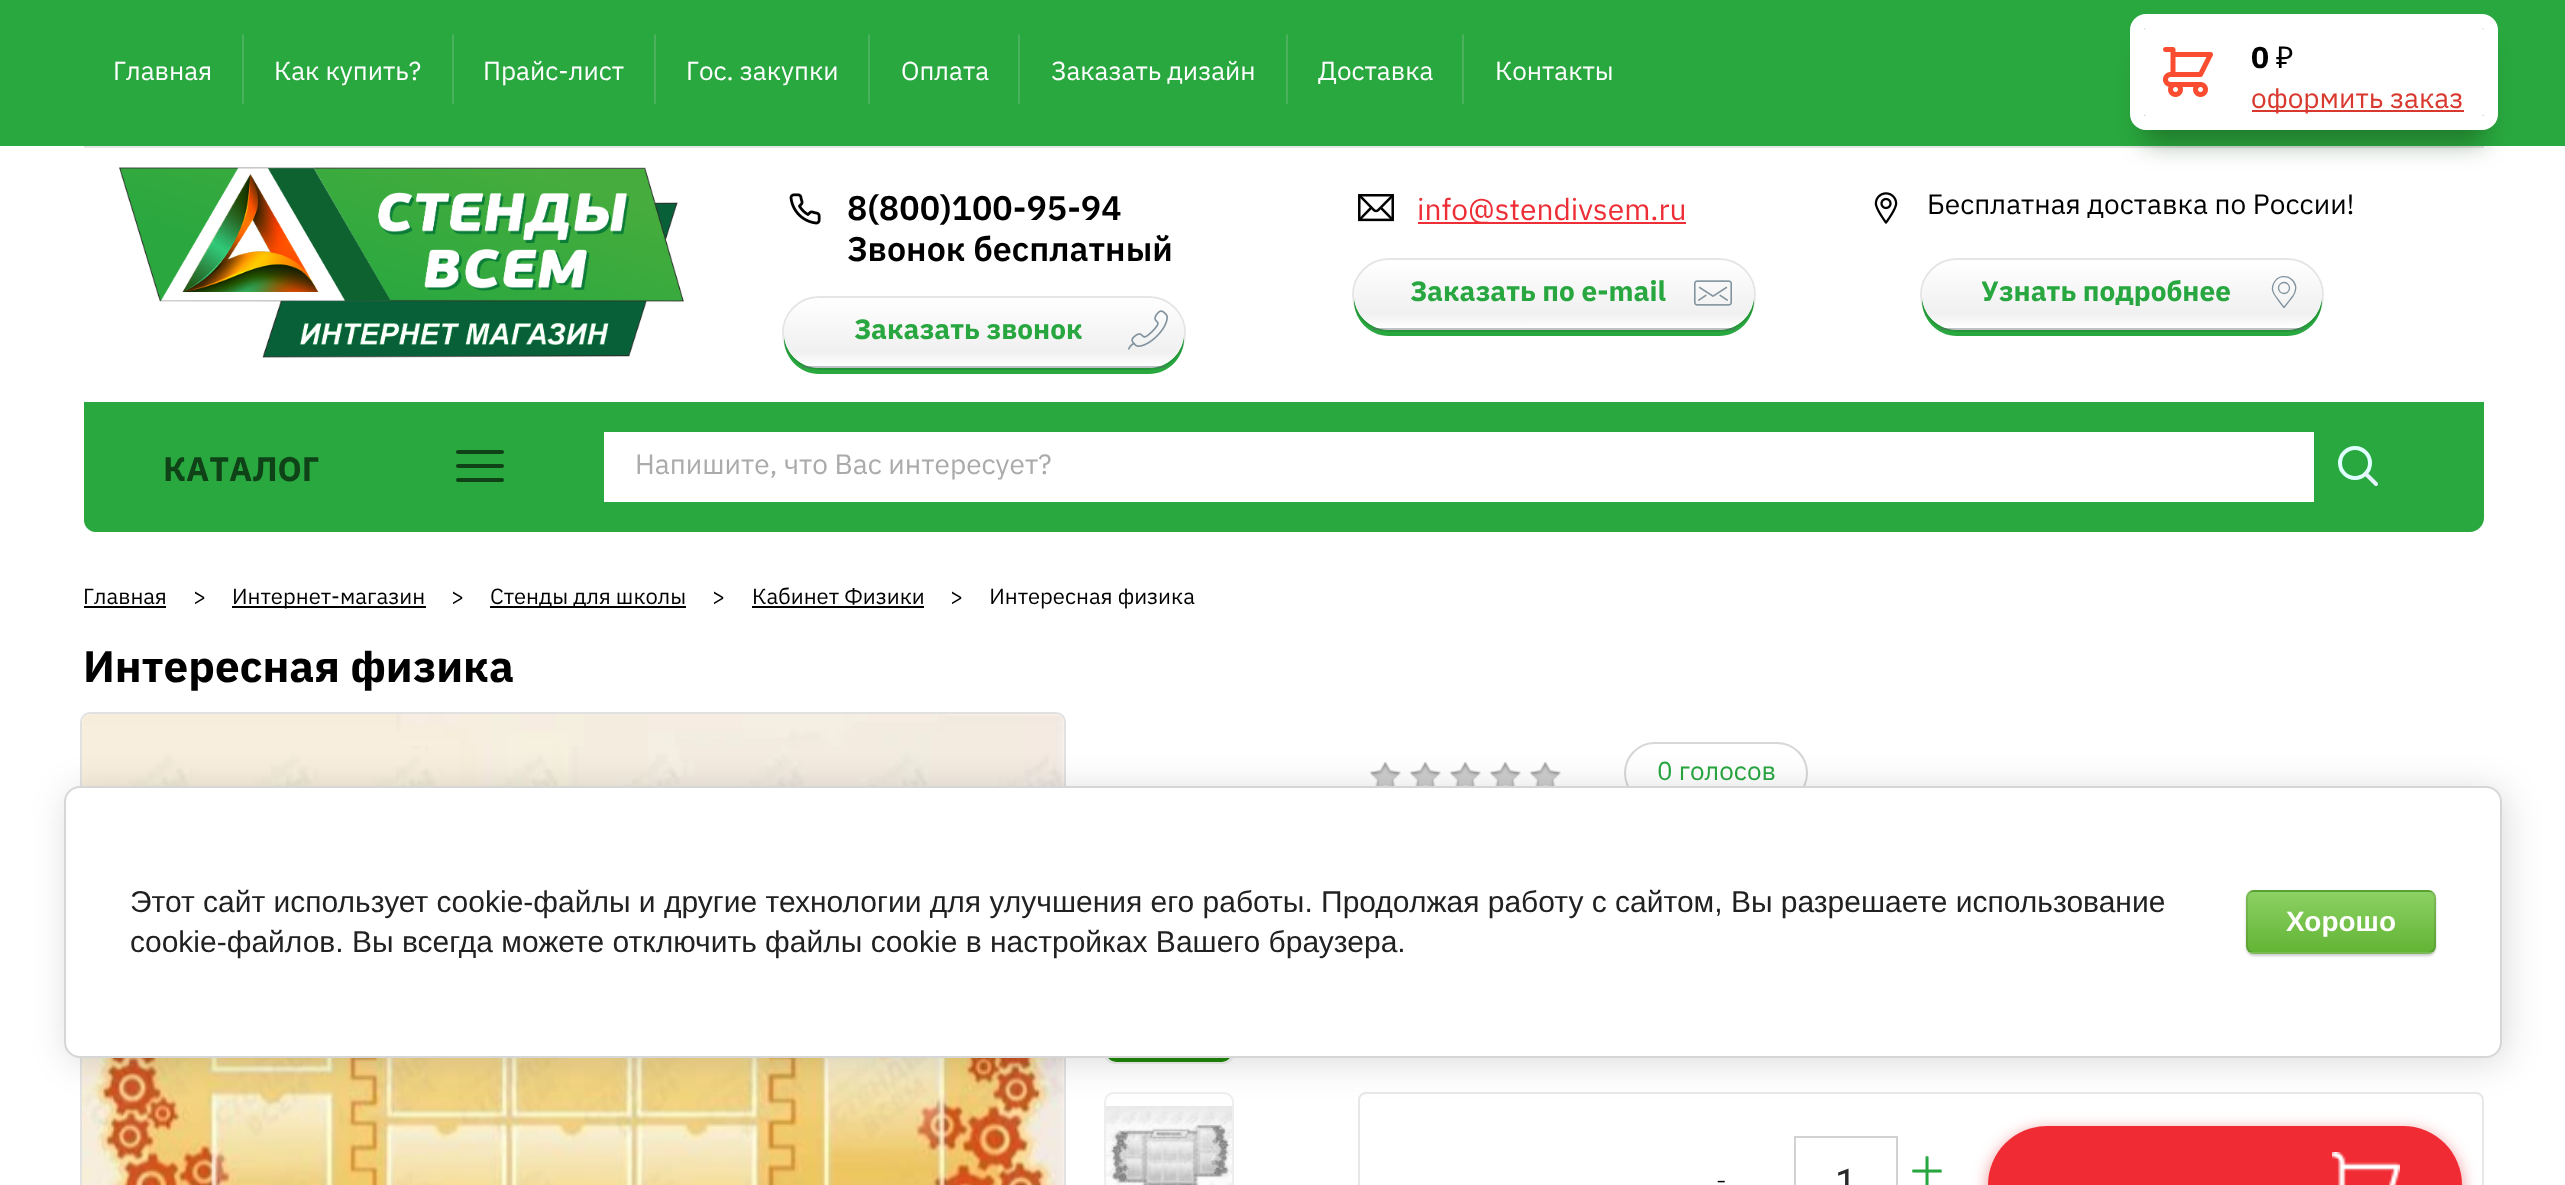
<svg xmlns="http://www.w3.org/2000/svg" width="2565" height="1185">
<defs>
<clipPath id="clip1"><rect x="784" y="298" width="400" height="70" rx="35"/></clipPath>
<linearGradient id="g1" gradientUnits="userSpaceOnUse" x1="984" y1="298" x2="984" y2="366"><stop offset="0" stop-color="#fff"/><stop offset="0.79" stop-color="#f0f0f0"/><stop offset="1" stop-color="#fefefe"/></linearGradient>
<linearGradient id="g2" gradientUnits="userSpaceOnUse" x1="984" y1="366" x2="984" y2="434"><stop offset="0" stop-color="#fff"/><stop offset="0.79" stop-color="#f0f0f0"/><stop offset="1" stop-color="#fefefe"/></linearGradient>
<clipPath id="clip2"><rect x="1354" y="260" width="400" height="70" rx="35"/></clipPath>
<linearGradient id="g3" gradientUnits="userSpaceOnUse" x1="1554" y1="260" x2="1554" y2="328"><stop offset="0" stop-color="#fff"/><stop offset="0.79" stop-color="#f0f0f0"/><stop offset="1" stop-color="#fefefe"/></linearGradient>
<linearGradient id="g4" gradientUnits="userSpaceOnUse" x1="1554" y1="328" x2="1554" y2="396"><stop offset="0" stop-color="#fff"/><stop offset="0.79" stop-color="#f0f0f0"/><stop offset="1" stop-color="#fefefe"/></linearGradient>
<clipPath id="clip3"><rect x="1922" y="260" width="400" height="70" rx="35"/></clipPath>
<linearGradient id="g5" gradientUnits="userSpaceOnUse" x1="2122" y1="260" x2="2122" y2="328"><stop offset="0" stop-color="#fff"/><stop offset="0.79" stop-color="#f0f0f0"/><stop offset="1" stop-color="#fefefe"/></linearGradient>
<linearGradient id="g6" gradientUnits="userSpaceOnUse" x1="2122" y1="328" x2="2122" y2="396"><stop offset="0" stop-color="#fff"/><stop offset="0.79" stop-color="#f0f0f0"/><stop offset="1" stop-color="#fefefe"/></linearGradient>
<clipPath id="clip4"><rect x="1982" y="274" width="248" height="32"/></clipPath>
<clipPath id="clip5"><rect x="2246" y="890" width="190" height="64" rx="8"/></clipPath>
<linearGradient id="g7" gradientUnits="userSpaceOnUse" x1="2341" y1="832" x2="2341" y2="892"><stop offset="0" stop-color="#8cd164"/><stop offset="1" stop-color="#63b435"/></linearGradient>
<linearGradient id="g8" gradientUnits="userSpaceOnUse" x1="2341" y1="892" x2="2341" y2="952"><stop offset="0" stop-color="#8cd164"/><stop offset="1" stop-color="#63b435"/></linearGradient>
<linearGradient id="g9" gradientUnits="userSpaceOnUse" x1="2341" y1="952" x2="2341" y2="1012"><stop offset="0" stop-color="#8cd164"/><stop offset="1" stop-color="#63b435"/></linearGradient>
</defs>
<rect width="100%" height="100%" fill="#fff"/>
<rect width="2565" height="146" fill="#29a83f"/>
<rect x="84" y="146" width="2400" height="2" fill="#e6e6e6"/>
<text x="113" y="80" style="font-family:IBM Plex Sans;font-size:26px;fill:#fff">Главная</text>
<rect x="242" y="34" width="2" height="70" rx="1" fill="#4cb15d"/>
<text x="274" y="80" style="font-family:IBM Plex Sans;font-size:26px;fill:#fff">Как купить?</text>
<rect x="452" y="34" width="2" height="70" rx="1" fill="#4cb15d"/>
<text x="483" y="80" style="font-family:IBM Plex Sans;font-size:26px;fill:#fff">Прайс-лист</text>
<rect x="654" y="34" width="2" height="70" rx="1" fill="#4cb15d"/>
<text x="686" y="80" style="font-family:IBM Plex Sans;font-size:26px;fill:#fff">Гос. закупки</text>
<rect x="868" y="34" width="2" height="70" rx="1" fill="#4cb15d"/>
<text x="901" y="80" style="font-family:IBM Plex Sans;font-size:26px;fill:#fff">Оплата</text>
<rect x="1018" y="34" width="2" height="70" rx="1" fill="#4cb15d"/>
<text x="1051" y="80" style="font-family:IBM Plex Sans;font-size:26px;fill:#fff">Заказать дизайн</text>
<rect x="1286" y="34" width="2" height="70" rx="1" fill="#4cb15d"/>
<text x="1318" y="80" style="font-family:IBM Plex Sans;font-size:26px;fill:#fff">Доставка</text>
<rect x="1462" y="34" width="2" height="70" rx="1" fill="#4cb15d"/>
<text x="1495" y="80" style="font-family:IBM Plex Sans;font-size:26px;fill:#fff">Контакты</text>
<rect x="2144" y="54" width="340" height="88" rx="2" fill="#17471380" filter="blur(13px)"/>
<rect x="2137" y="21" width="354" height="102" rx="9" fill="none" stroke="#fff" stroke-width="14"/>
<rect x="2144" y="28" width="340" height="88" rx="2" fill="#fff"/>
<image x="2162" y="47" width="51" height="50" href="media/1.png"/>
<text x="2251" y="68" style="font-family:IBM Plex Sans;font-size:30px;font-weight:bold;fill:#000">0</text>
<text x="2276" y="68" style="font-family:Noto Sans;font-size:30px;fill:#000">₽</text>
<rect x="2252" y="110" width="212" height="2" fill="#d8382d"/>
<text x="2251" y="108" style="font-family:IBM Plex Sans;font-size:28px;fill:#d8382d">оформить заказ</text>
<image x="119" y="167" width="565" height="191" href="media/2.png"/>
<image x="789" y="193" width="32" height="32" href="media/3.png"/>
<text x="847" y="220" style="font-family:IBM Plex Sans;font-size:34px;font-weight:600;fill:#000">8(800)100-95-94</text>
<text x="847" y="261" style="font-family:IBM Plex Sans;font-size:34px;font-weight:600;fill:#000">Звонок бесплатный</text>
<path d="M784 336v3c0 19 16 35 35 35h330c19 0 35-16 35-35v-3c-2 18-17 32-35 32h-330c-18 0-33-14-35-32z" fill="#29a83f"/>
<rect x="783" y="297" width="402" height="72" rx="36" fill="none" stroke="#0000001a" stroke-width="2"/>
<g clip-path="url(#clip1)">
<path d="M819 298h330c19.5 0 35 15.5 35 35v33h-400v-33c0-19.5 15.5-35 35-35z" fill="url(#g1)"/>
<rect x="807" y="366" width="354" height="2" fill="url(#g2)"/>
</g>
<image x="1128" y="310" width="40" height="40" href="media/4.png"/>
<rect x="802" y="366" width="364" height="2" fill="#626c7569"/>
<text x="854" y="339" style="font-family:IBM Plex Sans;font-size:28px;font-weight:bold;fill:#28a740">Заказать звонок</text>
<image x="1358" y="194" width="36" height="28" href="media/5.png"/>
<rect x="1418" y="222" width="268" height="2" fill="#ee2e36"/>
<text x="1417" y="220" style="font-family:IBM Plex Sans;font-size:30px;fill:#ee2e36">info@stendivsem.ru</text>
<path d="M1354 298v3c0 19 16 35 35 35h330c19 0 35-16 35-35v-3c-2 18-17 32-35 32h-330c-18 0-33-14-35-32z" fill="#29a83f"/>
<rect x="1353" y="259" width="402" height="72" rx="36" fill="none" stroke="#0000001a" stroke-width="2"/>
<g clip-path="url(#clip2)">
<path d="M1389 260h330c19.5 0 35 15.5 35 35v33h-400v-33c0-19.5 15.5-35 35-35z" fill="url(#g3)"/>
<rect x="1377" y="328" width="354" height="2" fill="url(#g4)"/>
</g>
<image x="1694" y="280" width="38" height="26" href="media/6.png"/>
<rect x="1372" y="328" width="364" height="2" fill="#626c7569"/>
<text x="1410" y="301" style="font-family:IBM Plex Sans;font-size:28px;font-weight:bold;fill:#28a740">Заказать по e-mail</text>
<image x="1874" y="192" width="24" height="32" href="media/7.png"/>
<text x="1927" y="214" style="font-family:IBM Plex Sans;font-size:28px;fill:#000">Бесплатная доставка по России!</text>
<path d="M1922 298v3c0 19 16 35 35 35h330c19 0 35-16 35-35v-3c-2 18-17 32-35 32h-330c-18 0-33-14-35-32z" fill="#29a83f"/>
<rect x="1921" y="259" width="402" height="72" rx="36" fill="none" stroke="#0000001a" stroke-width="2"/>
<g clip-path="url(#clip3)">
<path d="M1957 260h330c19.5 0 35 15.5 35 35v33h-400v-33c0-19.5 15.5-35 35-35z" fill="url(#g5)"/>
<rect x="1945" y="328" width="354" height="2" fill="url(#g6)"/>
</g>
<path d="M2293 296c10-14.5-10-27-18.5-14c-5 7.5 0 13 4.5 19l5 6.5z" fill="none" stroke="#80929e" stroke-width="1.3" stroke-linecap="round" stroke-linejoin="round"/>
<circle cx="2284" cy="288" r="5.5" fill="none" stroke="#80929e" stroke-width="1.3"/>
<rect x="1940" y="328" width="364" height="2" fill="#626c7569"/>
<g clip-path="url(#clip4)">
<text x="1981" y="301" style="font-family:IBM Plex Sans;font-size:28px;font-weight:bold;fill:#28a740">Узнать подробнее</text>
</g>
<path d="M84 402h2400v116c0 7.5-6.5 14-14 14h-2372c-7.5 0-14-6.5-14-14z" fill="#29a83f"/>
<rect x="84" y="402" width="500" height="130" rx="12" fill="#29a83f"/>
<text x="163" y="481" style="font-family:IBM Plex Sans;font-size:34px;font-weight:bold;fill:#104218">КАТАЛОГ</text>
<image x="456" y="450" width="48" height="32" href="media/8.png"/>
<rect x="604" y="432" width="1710" height="70" fill="#fff"/>
<text x="635" y="474" style="font-family:IBM Plex Sans;font-size:28px;fill:#ababab">Напишите, что Вас интересует?</text>
<circle cx="2355" cy="463" r="15" fill="none" stroke="#e0ffff" stroke-width="4"/>
<path d="M2376 484l-10.5-10.5" fill="none" stroke="#e7f2ff" stroke-width="4" stroke-linecap="round" stroke-linejoin="round"/>
<text x="83" y="604" style="font-family:IBM Plex Sans;font-size:22px;fill:#000">Главная</text>
<rect x="84" y="606" width="82" height="2" fill="#000"/>
<text x="193" y="604" style="font-family:IBM Plex Sans;font-size:22px;fill:#000">&gt;</text>
<rect x="232" y="606" width="194" height="2" fill="#000"/>
<text x="232" y="604" style="font-family:IBM Plex Sans;font-size:22px;fill:#000">Интернет-магазин</text>
<text x="451" y="604" style="font-family:IBM Plex Sans;font-size:22px;fill:#000">&gt;</text>
<rect x="490" y="606" width="196" height="2" fill="#000"/>
<text x="490" y="604" style="font-family:IBM Plex Sans;font-size:22px;fill:#000">Стенды для школы</text>
<text x="712" y="604" style="font-family:IBM Plex Sans;font-size:22px;fill:#000">&gt;</text>
<text x="752" y="604" style="font-family:IBM Plex Sans;font-size:22px;fill:#000">Кабинет Физики</text>
<rect x="752" y="606" width="172" height="2" fill="#000"/>
<text x="950" y="604" style="font-family:IBM Plex Sans;font-size:22px;fill:#000" xml:space="preserve">&gt;     Интересная физика</text>
<text x="83" y="682" style="font-family:IBM Plex Sans;font-size:44px;font-weight:bold;fill:#000">Интересная физика</text>
<rect x="81" y="713" width="984" height="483" rx="9" fill="none" stroke="#e1e1e1" stroke-width="2"/>
<image x="82" y="714" width="982" height="471" href="media/9.png"/>
<rect x="1105" y="935" width="128" height="128" rx="9" fill="none" stroke="#eee" stroke-width="2"/>
<rect x="1109" y="939" width="120" height="120" rx="7" fill="none" stroke="#1e8707" stroke-width="6"/>
<rect x="1105" y="1093" width="128" height="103" rx="9" fill="none" stroke="#eee" stroke-width="2"/>
<image x="1106" y="1106" width="126" height="79" href="media/10.png"/>
<image x="1370" y="762" width="191" height="24" href="media/11.png"/>
<rect x="1625" y="743" width="182" height="60" rx="30" fill="none" stroke="#d7d7d7" stroke-width="2"/>
<text x="1657" y="780" style="font-family:IBM Plex Sans;font-size:26px;fill:#28a740">0 голосов</text>
<rect x="1359" y="1093" width="1124" height="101" rx="7" fill="none" stroke="#e7e7e7" stroke-width="2"/>
<text x="1717" y="1191" style="font-family:Roboto;font-size:30px;font-weight:300;letter-spacing:-1px;fill:#000">-</text>
<rect x="1795" y="1137" width="102" height="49" fill="none" stroke="#d2d2d2" stroke-width="2"/>
<text x="1835" y="1196" style="font-family:Roboto;font-size:38px;fill:#292929">1</text>
<image x="1912" y="1156" width="30" height="29" href="media/12.png"/>
<rect x="1988" y="1130" width="474" height="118" rx="59" fill="#e20e187a" filter="blur(8px)"/>
<rect x="1988" y="1126" width="474" height="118" rx="59" fill="#f02b34"/>
<image x="2332" y="1152" width="68" height="33" href="media/13.png"/>
<rect x="68" y="790" width="2438" height="272" rx="16" fill="#00000024" filter="blur(18px)"/>
<rect x="65" y="787" width="2436" height="270" rx="15" fill="#fff" stroke="#d6d6d6" stroke-width="2"/>
<text x="130" y="912" style="font-family:Liberation Sans;font-size:30px;fill:#212121">Этот сайт использует cookie-файлы и другие технологии для улучшения его работы. Продолжая работу с сайтом, Вы разрешаете использование</text>
<text x="130" y="952" style="font-family:Liberation Sans;font-size:30px;fill:#212121">cookie-файлов. Вы всегда можете отключить файлы cookie в настройках Вашего браузера.</text>
<rect x="2246" y="892" width="190" height="64" rx="8" fill="#00000033" filter="blur(1px)"/>
<g clip-path="url(#clip5)">
<rect x="2246" y="890" width="190" height="2" fill="url(#g7)"/>
<rect x="2246" y="892" width="190" height="60" fill="url(#g8)"/>
<rect x="2246" y="952" width="190" height="2" fill="url(#g9)"/>
</g>
<rect x="2247" y="891" width="188" height="62" rx="7" fill="none" stroke="#0000001a" stroke-width="2"/>
<text x="2286" y="931" style="font-family:Liberation Sans;font-size:28px;font-weight:bold;fill:#fff">Хорошо</text>
</svg>
